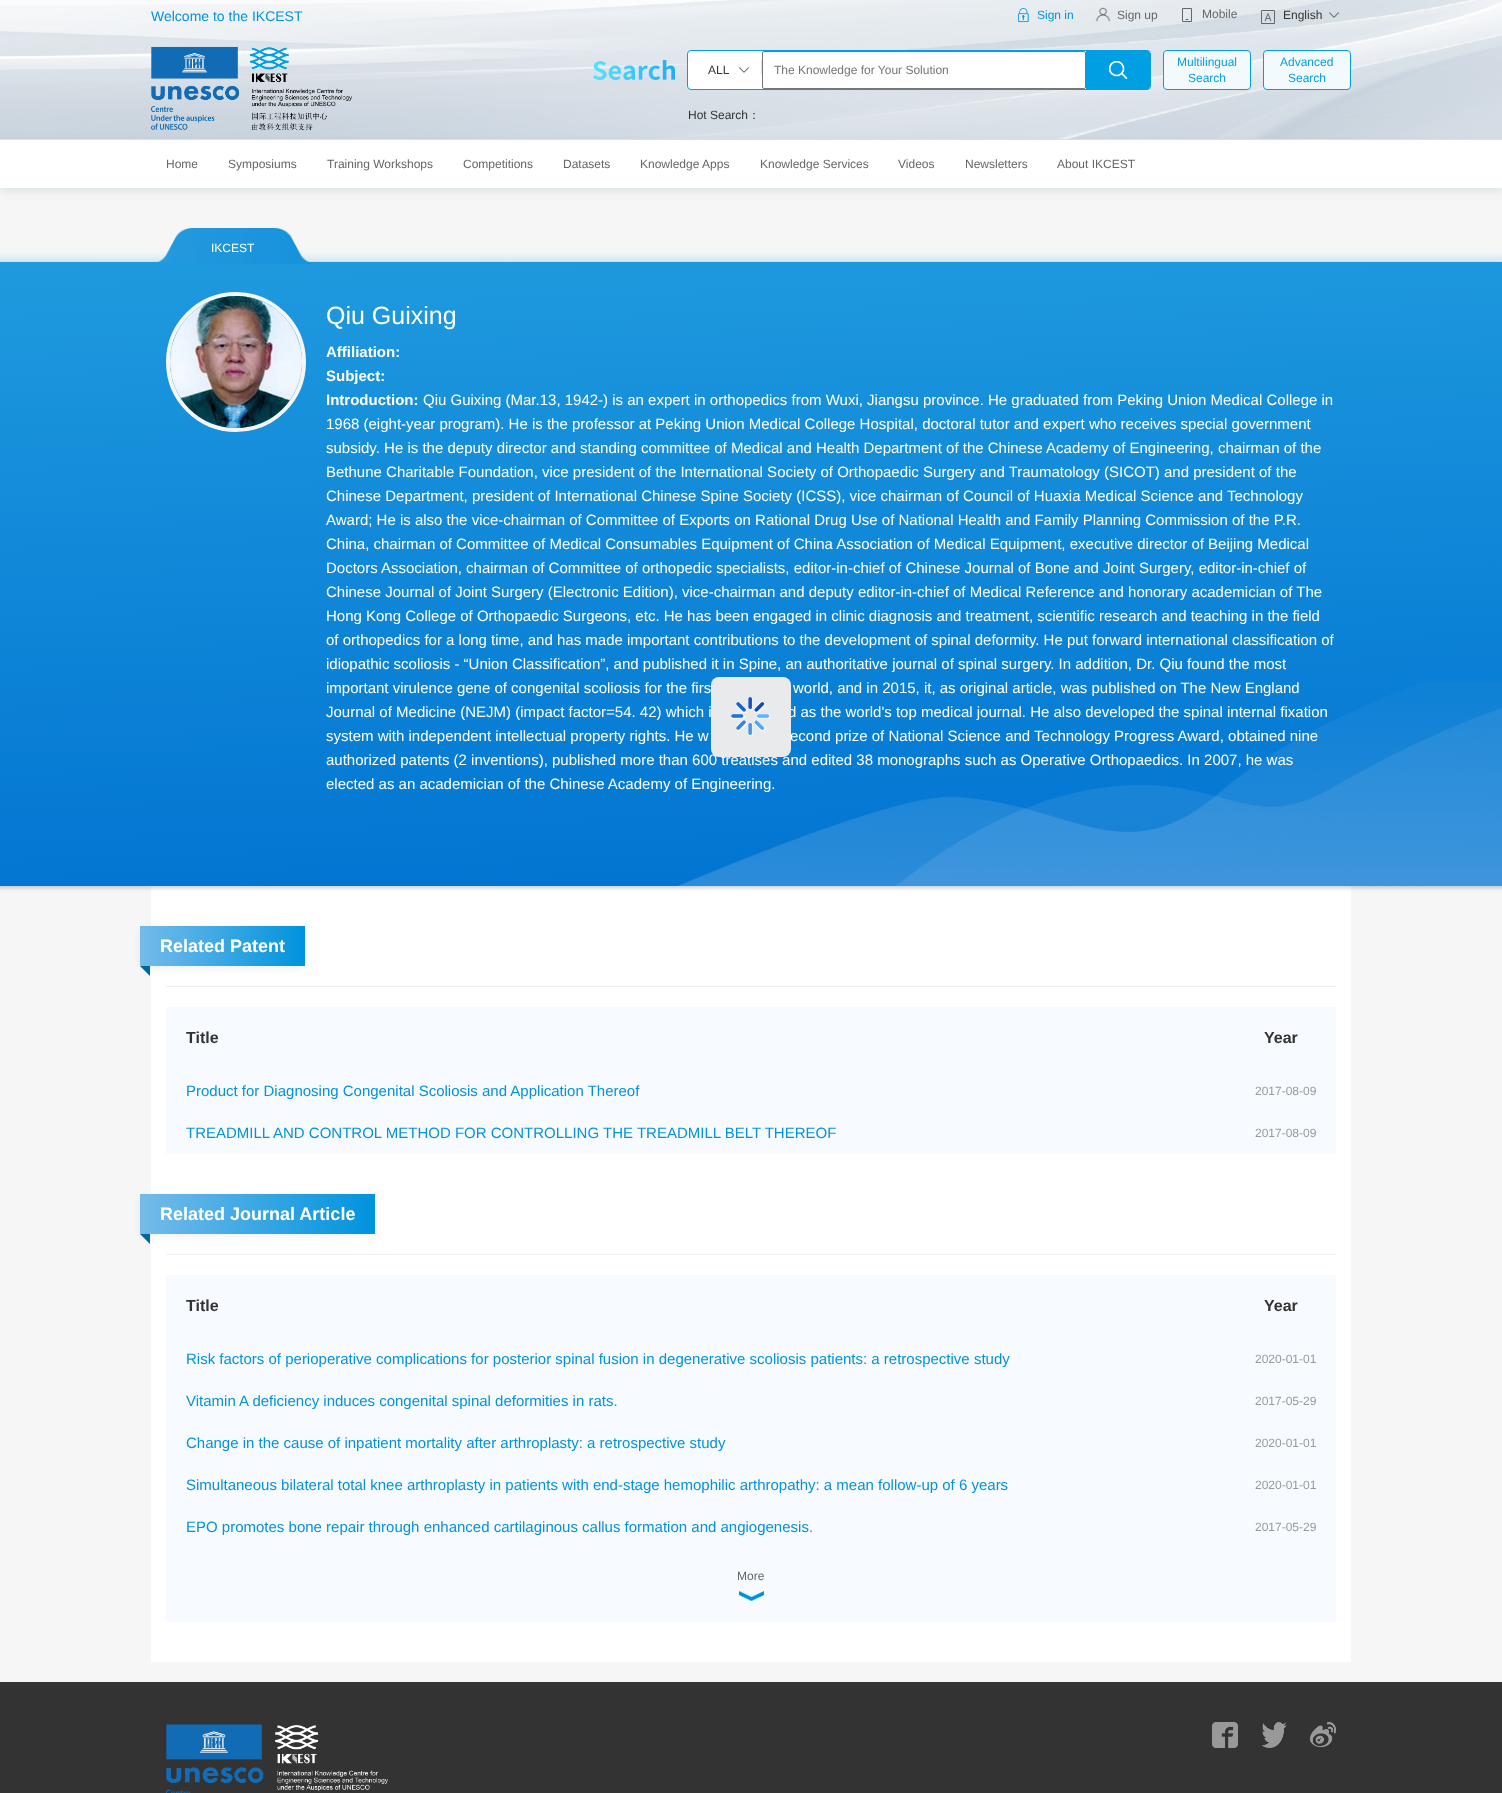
<svg xmlns="http://www.w3.org/2000/svg" width="1502" height="1793">
<defs>
<linearGradient id="g1" gradientUnits="userSpaceOnUse" x1="739" y1="236" x2="763" y2="912"><stop offset="0" stop-color="#1f9ade"/><stop offset="1" stop-color="#0073d1"/></linearGradient>
<linearGradient id="g2" gradientUnits="userSpaceOnUse" x1="140" y1="946" x2="305" y2="946"><stop offset="0" stop-color="#74bbe9"/><stop offset="1" stop-color="#0093dd"/></linearGradient>
<linearGradient id="g3" gradientUnits="userSpaceOnUse" x1="140" y1="1214" x2="375" y2="1214"><stop offset="0" stop-color="#74bbe9"/><stop offset="1" stop-color="#0093dd"/></linearGradient>
</defs>
<rect width="100%" height="100%" fill="#f6f6f6"/>
<rect width="1502" height="139" fill="#fff"/>
<image x="0" y="0" width="1502" height="139" href="media/1.png"/>
<text x="151" y="21" style="font-family:Liberation Sans;font-size:14px;fill:#0492dc">Welcome to the IKCEST</text>
<image x="1018" y="8" width="11" height="14" href="media/2.png"/>
<text x="1037" y="19" style="font-family:Liberation Sans;font-size:12px;fill:#0492dc">Sign in</text>
<image x="1095" y="7" width="16" height="15" href="media/3.png"/>
<text x="1117" y="19" style="font-family:Liberation Sans;font-size:12px;fill:#666">Sign up</text>
<image x="1182" y="8" width="10" height="14" href="media/4.png"/>
<text x="1202" y="18" style="font-family:Liberation Sans;font-size:12px;fill:#666">Mobile</text>
<image x="1261" y="10" width="14" height="14" href="media/5.png"/>
<text x="1283" y="19" style="font-family:Liberation Sans;font-size:12px;fill:#333">English</text>
<image x="1329" y="12" width="10" height="6" href="media/6.png"/>
<image x="151" y="46" width="201" height="85" href="media/7.png"/>
<image x="593" y="60" width="82" height="20" href="media/8.png"/>
<rect x="687.5" y="50.5" width="463" height="39" rx="3.5" fill="#fff" stroke="#009fe3"/>
<rect x="761" y="60" width="1" height="14" fill="#dde0e1"/>
<text x="708" y="74" style="font-family:Liberation Sans;font-size:12px;fill:#333">ALL</text>
<image x="739" y="67" width="10" height="6" href="media/9.png"/>
<rect x="762.5" y="51.5" width="323" height="37" rx="1.5" fill="none" stroke="#767676"/>
<text x="774" y="74" style="font-family:Liberation Sans;font-size:12px;fill:#757575">The Knowledge for Your Solution</text>
<path d="M1086 50h60c2 0 4 2 4 4v32c0 2-2 4-4 4h-60z" fill="#009fe3"/>
<image x="1109" y="61" width="19" height="18" href="media/10.png"/>
<rect x="1163.5" y="50.5" width="87" height="39" rx="3.5" fill="#f3fafe" stroke="#009fe3"/>
<text x="1177" y="66" style="font-family:Liberation Sans;font-size:12px;fill:#009fe3">Multilingual</text>
<text x="1188" y="82" style="font-family:Liberation Sans;font-size:12px;fill:#009fe3">Search</text>
<rect x="1263.5" y="50.5" width="87" height="39" rx="3.5" fill="#f3fafe" stroke="#009fe3"/>
<text x="1280" y="66" style="font-family:Liberation Sans;font-size:12px;fill:#009fe3">Advanced</text>
<text x="1288" y="82" style="font-family:Liberation Sans;font-size:12px;fill:#009fe3">Search</text>
<text x="688" y="119" style="font-family:Liberation Sans;font-size:12px;fill:#333">Hot Search</text>
<text x="748" y="119" style="font-family:WenQuanYi Zen Hei;font-size:12px;font-weight:500;fill:#333">：</text>
<rect y="144" width="1502" height="48" fill="#15475d1a" filter="blur(4px)"/>
<rect y="139" width="1502" height="1" fill="#dde0e1"/>
<rect y="140" width="1502" height="48" fill="#fff"/>
<text x="166" y="168" style="font-family:Liberation Sans;font-size:12px;fill:#666">Home</text>
<text x="228" y="168" style="font-family:Liberation Sans;font-size:12px;fill:#666">Symposiums</text>
<text x="327" y="168" style="font-family:Liberation Sans;font-size:12px;fill:#666">Training Workshops</text>
<text x="463" y="168" style="font-family:Liberation Sans;font-size:12px;fill:#666">Competitions</text>
<text x="563" y="168" style="font-family:Liberation Sans;font-size:12px;fill:#666">Datasets</text>
<text x="640" y="168" style="font-family:Liberation Sans;font-size:12px;fill:#666">Knowledge Apps</text>
<text x="760" y="168" style="font-family:Liberation Sans;font-size:12px;fill:#666">Knowledge Services</text>
<text x="898" y="168" style="font-family:Liberation Sans;font-size:12px;fill:#666">Videos</text>
<text x="965" y="168" style="font-family:Liberation Sans;font-size:12px;fill:#666">Newsletters</text>
<text x="1057" y="168" style="font-family:Liberation Sans;font-size:12px;fill:#666">About IKCEST</text>
<rect x="151" y="886" width="1200" height="776" fill="#fff"/>
<rect x="-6" y="264" width="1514" height="624" fill="#0000002e" filter="blur(2px)"/>
<rect x="-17" y="260" width="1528" height="620" fill="#0093dd38" filter="blur(6px)"/>
<rect y="262" width="1502" height="624" fill="url(#g1)"/>
<image x="157" y="228" width="156" height="36" href="media/11.png"/>
<text x="211" y="252" style="font-family:Liberation Sans;font-size:12px;fill:#fff">IKCEST</text>
<circle cx="236" cy="362" r="68" fill="none" stroke="#f5f5f5" stroke-width="4"/>
<image x="170" y="296" width="132" height="132" href="media/12.png"/>
<text x="326" y="324" style="font-family:Liberation Sans;font-size:25px;fill:#fff">Qiu Guixing</text>
<text x="326" y="357" style="font-family:Liberation Sans;font-size:15px;font-weight:bold;fill:#fff">Affiliation:</text>
<text x="326" y="381" style="font-family:Liberation Sans;font-size:15px;font-weight:bold;fill:#fff">Subject:</text>
<text x="326" y="405" style="font-family:Liberation Sans;font-size:15px;font-weight:bold;fill:#fff">Introduction:</text>
<text x="423" y="405" style="font-family:Liberation Sans;font-size:15px;fill:#fff">Qiu Guixing (Mar.13, 1942-) is an expert in orthopedics from Wuxi, Jiangsu province. He graduated from Peking Union Medical College in</text>
<text x="326" y="429" style="font-family:Liberation Sans;font-size:15px;fill:#fff">1968 (eight-year program). He is the professor at Peking Union Medical College Hospital, doctoral tutor and expert who receives special government</text>
<text x="326" y="453" style="font-family:Liberation Sans;font-size:15px;fill:#fff">subsidy. He is the deputy director and standing committee of Medical and Health Department of the Chinese Academy of Engineering, chairman of the</text>
<text x="326" y="477" style="font-family:Liberation Sans;font-size:15px;fill:#fff">Bethune Charitable Foundation, vice president of the International Society of Orthopaedic Surgery and Traumatology (SICOT) and president of the</text>
<text x="326" y="501" style="font-family:Liberation Sans;font-size:15px;fill:#fff">Chinese Department, president of International Chinese Spine Society (ICSS), vice chairman of Council of Huaxia Medical Science and Technology</text>
<text x="326" y="525" style="font-family:Liberation Sans;font-size:15px;fill:#fff">Award; He is also the vice-chairman of Committee of Exports on Rational Drug Use of National Health and Family Planning Commission of the P.R.</text>
<text x="326" y="549" style="font-family:Liberation Sans;font-size:15px;fill:#fff">China, chairman of Committee of Medical Consumables Equipment of China Association of Medical Equipment, executive director of Beijing Medical</text>
<text x="326" y="573" style="font-family:Liberation Sans;font-size:15px;fill:#fff">Doctors Association, chairman of Committee of orthopedic specialists, editor-in-chief of Chinese Journal of Bone and Joint Surgery, editor-in-chief of</text>
<text x="326" y="597" style="font-family:Liberation Sans;font-size:15px;fill:#fff">Chinese Journal of Joint Surgery (Electronic Edition), vice-chairman and deputy editor-in-chief of Medical Reference and honorary academician of The</text>
<text x="326" y="621" style="font-family:Liberation Sans;font-size:15px;fill:#fff">Hong Kong College of Orthopaedic Surgeons, etc. He has been engaged in clinic diagnosis and treatment, scientific research and teaching in the field</text>
<text x="326" y="645" style="font-family:Liberation Sans;font-size:15px;fill:#fff">of orthopedics for a long time, and has made important contributions to the development of spinal deformity. He put forward international classification of</text>
<text x="326" y="669" style="font-family:Liberation Sans;font-size:15px;fill:#fff">idiopathic scoliosis - “Union Classification”, and published it in Spine, an authoritative journal of spinal surgery. In addition, Dr. Qiu found the most</text>
<text x="326" y="693" style="font-family:Liberation Sans;font-size:15px;fill:#fff">important virulence gene of congenital scoliosis for the firs</text>
<text x="793" y="693" style="font-family:Liberation Sans;font-size:15px;fill:#fff">world, and in 2015, it, as original article, was published on The New England</text>
<text x="326" y="717" style="font-family:Liberation Sans;font-size:15px;fill:#fff">Journal of Medicine (NEJM) (impact factor=54. 42) which i</text>
<text x="788" y="717" style="font-family:Liberation Sans;font-size:15px;fill:#fff">d as the world's top medical journal. He also developed the spinal internal fixation</text>
<text x="326" y="741" style="font-family:Liberation Sans;font-size:15px;fill:#fff">system with independent intellectual property rights. He w</text>
<text x="790" y="741" style="font-family:Liberation Sans;font-size:15px;fill:#fff">econd prize of National Science and Technology Progress Award, obtained nine</text>
<text x="326" y="765" style="font-family:Liberation Sans;font-size:15px;fill:#fff">authorized patents (2 inventions), published more than 600 treatises and edited 38 monographs such as Operative Orthopaedics. In 2007, he was</text>
<text x="326" y="789" style="font-family:Liberation Sans;font-size:15px;fill:#fff">elected as an academician of the Chinese Academy of Engineering.</text>
<image x="678" y="682" width="824" height="204" href="media/13.png"/>
<rect x="142" y="930" width="161" height="36" fill="#0000001a" filter="blur(4px)"/>
<rect x="140" y="926" width="165" height="40" fill="url(#g2)"/>
<text x="160" y="952" style="font-family:Liberation Sans;font-size:18px;font-weight:bold;fill:#fff">Related Patent</text>
<path d="M150 966v10l-10-10z" fill="#026698"/>
<rect x="166" y="986" width="1170" height="1" fill="#eee"/>
<rect x="166" y="1007" width="1170" height="147" fill="#f7fbff"/>
<text x="186" y="1043" style="font-family:Liberation Sans;font-size:16px;font-weight:bold;fill:#333">Title</text>
<text x="1264" y="1043" style="font-family:Liberation Sans;font-size:16px;font-weight:bold;fill:#333">Year</text>
<text x="186" y="1096" style="font-family:Liberation Sans;font-size:15px;fill:#0492dc">Product for Diagnosing Congenital Scoliosis and Application Thereof</text>
<text x="1255" y="1095" style="font-family:Liberation Sans;font-size:12px;fill:#999">2017-08-09</text>
<text x="186" y="1138" style="font-family:Liberation Sans;font-size:15px;fill:#0492dc">TREADMILL AND CONTROL METHOD FOR CONTROLLING THE TREADMILL BELT THEREOF</text>
<text x="1255" y="1137" style="font-family:Liberation Sans;font-size:12px;fill:#999">2017-08-09</text>
<rect x="142" y="1198" width="231" height="36" fill="#0000001a" filter="blur(4px)"/>
<rect x="140" y="1194" width="235" height="40" fill="url(#g3)"/>
<text x="160" y="1220" style="font-family:Liberation Sans;font-size:18px;font-weight:bold;fill:#fff">Related Journal Article</text>
<path d="M150 1234v10l-10-10z" fill="#026698"/>
<rect x="166" y="1254" width="1170" height="1" fill="#eee"/>
<rect x="166" y="1275" width="1170" height="347" fill="#f7fbff"/>
<text x="186" y="1311" style="font-family:Liberation Sans;font-size:16px;font-weight:bold;fill:#333">Title</text>
<text x="1264" y="1311" style="font-family:Liberation Sans;font-size:16px;font-weight:bold;fill:#333">Year</text>
<text x="186" y="1364" style="font-family:Liberation Sans;font-size:15px;fill:#0492dc">Risk factors of perioperative complications for posterior spinal fusion in degenerative scoliosis patients: a retrospective study</text>
<text x="1255" y="1363" style="font-family:Liberation Sans;font-size:12px;fill:#999">2020-01-01</text>
<text x="186" y="1406" style="font-family:Liberation Sans;font-size:15px;fill:#0492dc">Vitamin A deficiency induces congenital spinal deformities in rats.</text>
<text x="1255" y="1405" style="font-family:Liberation Sans;font-size:12px;fill:#999">2017-05-29</text>
<text x="186" y="1448" style="font-family:Liberation Sans;font-size:15px;fill:#0492dc">Change in the cause of inpatient mortality after arthroplasty: a retrospective study</text>
<text x="1255" y="1447" style="font-family:Liberation Sans;font-size:12px;fill:#999">2020-01-01</text>
<text x="186" y="1490" style="font-family:Liberation Sans;font-size:15px;fill:#0492dc">Simultaneous bilateral total knee arthroplasty in patients with end-stage hemophilic arthropathy: a mean follow-up of 6 years</text>
<text x="1255" y="1489" style="font-family:Liberation Sans;font-size:12px;fill:#999">2020-01-01</text>
<text x="186" y="1532" style="font-family:Liberation Sans;font-size:15px;fill:#0492dc">EPO promotes bone repair through enhanced cartilaginous callus formation and angiogenesis.</text>
<text x="1255" y="1531" style="font-family:Liberation Sans;font-size:12px;fill:#999">2017-05-29</text>
<text x="737" y="1580" style="font-family:Liberation Sans;font-size:12px;fill:#666">More</text>
<image x="739" y="1591" width="25" height="10" href="media/14.png"/>
<rect y="1682" width="1502" height="111" fill="#333"/>
<image x="166" y="1724" width="222" height="69" href="media/15.png"/>
<image x="1212" y="1722" width="26" height="26" href="media/16.png"/>
<image x="1261" y="1722" width="26" height="26" href="media/17.png"/>
<image x="1310" y="1722" width="26" height="26" href="media/18.png"/>
<rect x="711" y="677" width="80" height="80" rx="8" fill="#e9eaec"/>
<image x="731" y="697" width="39" height="39" href="media/19.png"/>
</svg>
